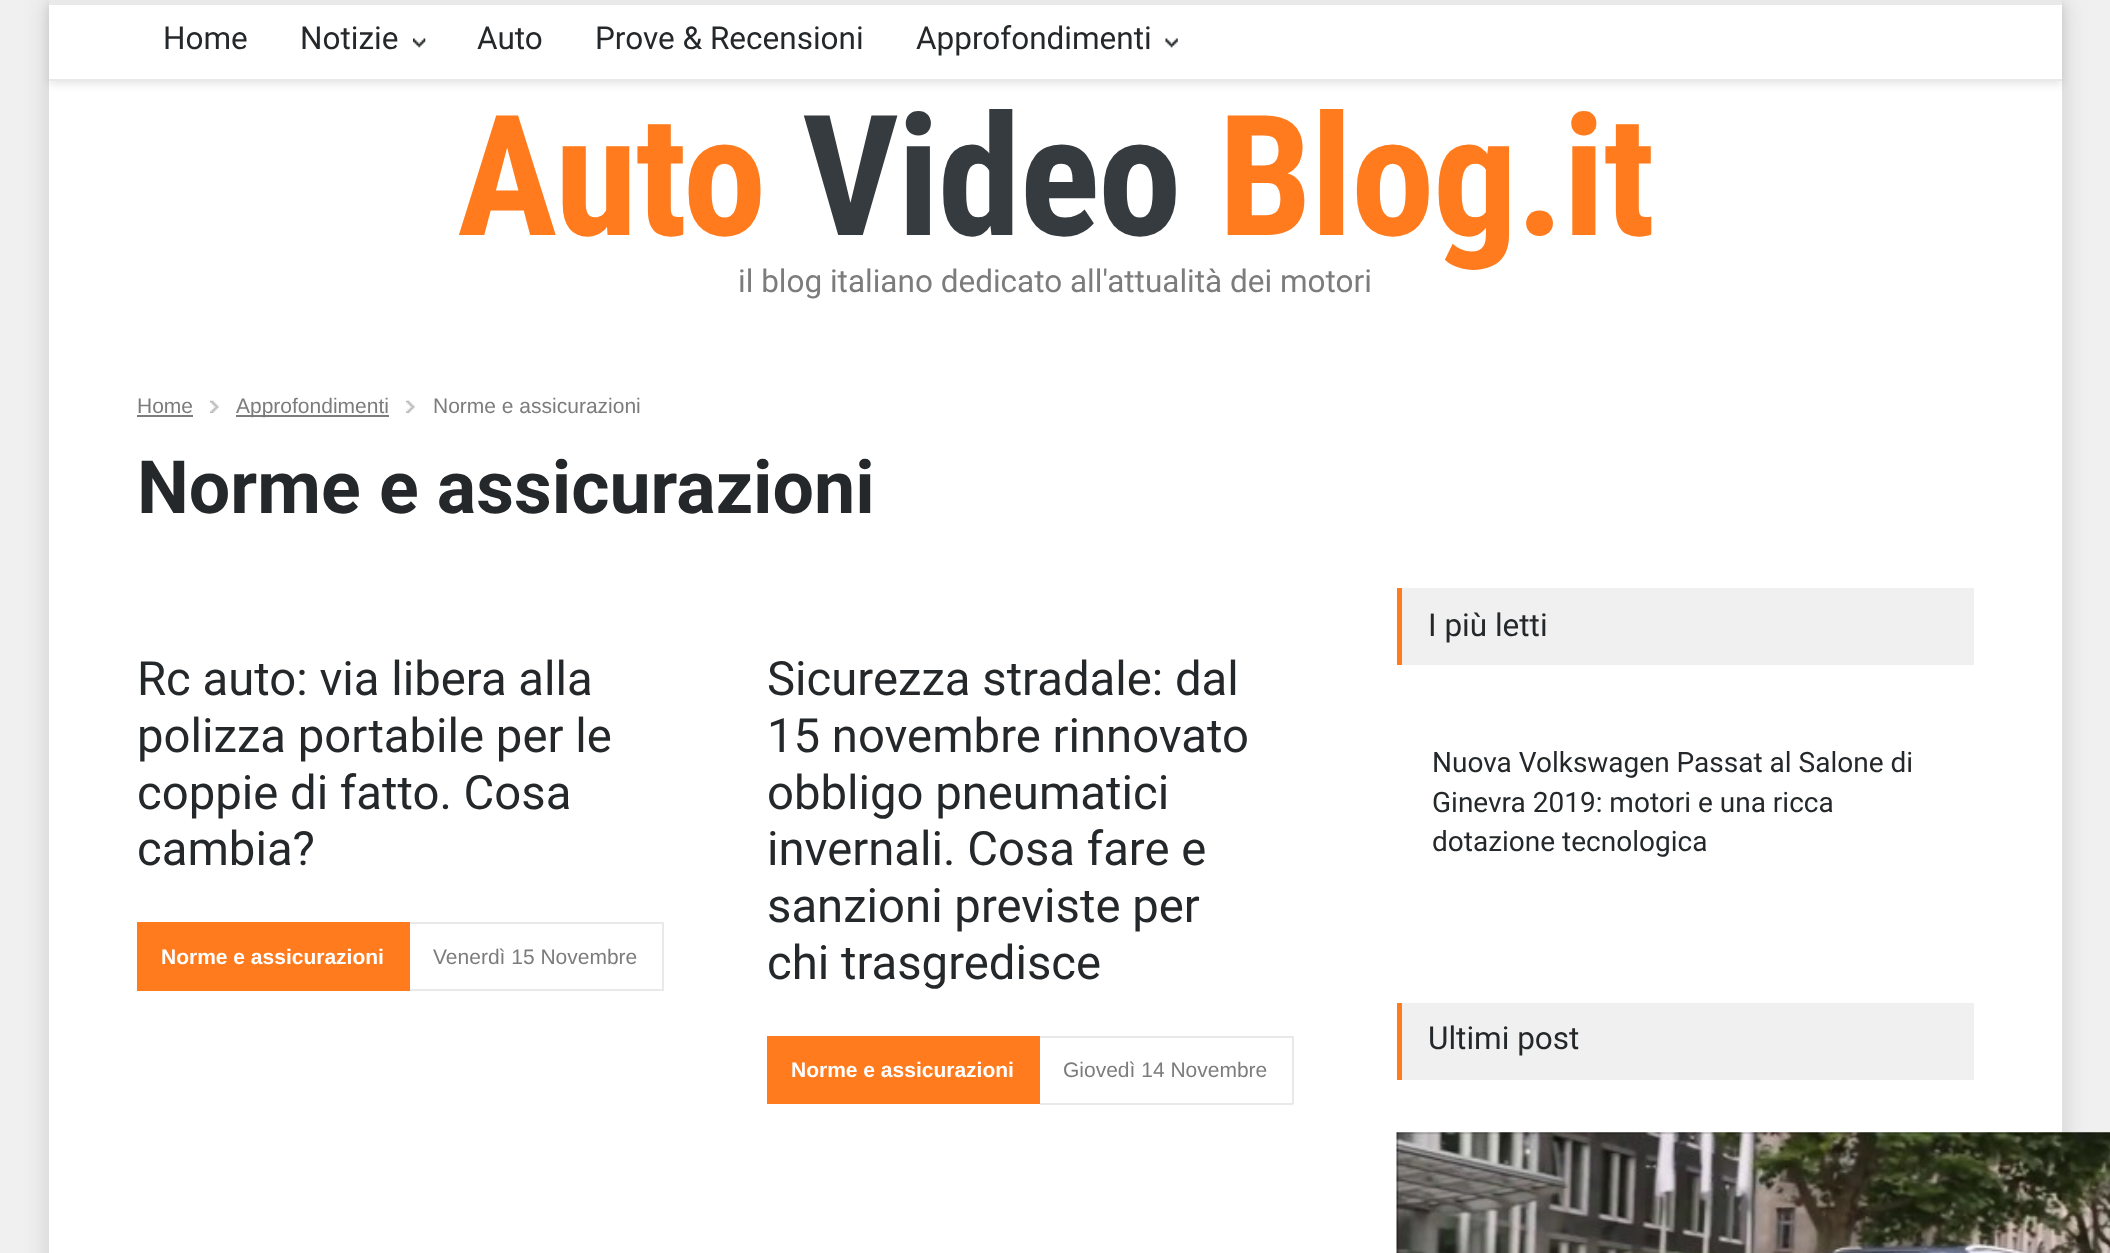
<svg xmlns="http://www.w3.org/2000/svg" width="2110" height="1253">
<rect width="100%" height="100%" fill="#f0f0f0"/>
<rect x="49" width="2013" height="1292" fill="#00000026" filter="blur(13px)"/>
<rect x="49" y="81" width="2013" height="1172" fill="#fff"/>
<rect x="49" y="4" width="2013" height="80" fill="#0000001a" filter="blur(4.5px)"/>
<rect x="49" y="5" width="2013" height="74" fill="#fff"/>
<rect x="49" width="2013" height="5" fill="#e9e9e9"/>
<rect x="49" y="79" width="2013" height="2" fill="#e9e9e9"/>
<text x="163" y="49" style="font-family:Roboto;font-size:31.5px;fill:#25282a">Home</text>
<image x="413" y="38" width="13" height="10" href="media/1.png"/>
<text x="300" y="49" style="font-family:Roboto;font-size:31.5px;fill:#25282a">Notizie</text>
<text x="477" y="49" style="font-family:Roboto;font-size:31.5px;fill:#25282a">Auto</text>
<text x="595" y="49" style="font-family:Roboto;font-size:31.5px;fill:#25282a">Prove &amp; Recensioni</text>
<image x="1165" y="38" width="13" height="10" href="media/2.png"/>
<text x="916" y="49" style="font-family:Roboto;font-size:31.5px;fill:#25282a">Approfondimenti</text>
<text x="457" y="235" style="font-family:Roboto Condensed;font-size:168px;font-weight:bold;letter-spacing:-1.75px;fill:#ff7b1d">Auto</text>
<text x="802" y="235" style="font-family:Roboto Condensed;font-size:168px;font-weight:bold;letter-spacing:-1.75px;fill:#363b40">Video</text>
<text x="1218" y="235" style="font-family:Roboto Condensed;font-size:168px;font-weight:bold;letter-spacing:-1.75px;fill:#ff7b1d">Blog.it</text>
<text x="738" y="292" style="font-family:Roboto;font-size:31.5px;fill:#7c7c7c">il blog italiano dedicato all'attualità dei motori</text>
<text x="137" y="413" style="font-family:Liberation Sans;font-size:21px;fill:#7c7c7c">Home</text>
<rect x="137" y="415" width="56" height="2" fill="#7c7c7c"/>
<image x="210" y="400" width="9" height="13" href="media/3.png"/>
<rect x="236" y="415" width="153" height="2" fill="#7c7c7c"/>
<text x="236" y="413" style="font-family:Liberation Sans;font-size:21px;fill:#7c7c7c">Approfondimenti</text>
<image x="406" y="400" width="9" height="13" href="media/3.png"/>
<text x="433" y="413" style="font-family:Liberation Sans;font-size:21px;fill:#7c7c7c">Norme e assicurazioni</text>
<text x="137" y="513" style="font-family:Roboto;font-size:73.5px;font-weight:bold;fill:#25282a">Norme e assicurazioni</text>
<text x="137" y="695" style="font-family:Roboto;font-size:47.25px;fill:#25282a">Rc auto: via libera alla</text>
<text x="137" y="752" style="font-family:Roboto;font-size:47.25px;fill:#25282a">polizza portabile per le</text>
<text x="137" y="809" style="font-family:Roboto;font-size:47.25px;fill:#25282a">coppie di fatto. Cosa</text>
<text x="137" y="865" style="font-family:Roboto;font-size:47.25px;fill:#25282a">cambia?</text>
<rect x="137" y="922" width="273" height="69" fill="#ff7b1d"/>
<text x="161" y="964" style="font-family:Liberation Sans;font-size:21px;font-weight:bold;fill:#fff">Norme e assicurazioni</text>
<rect x="410" y="922" width="253" height="2" fill="#e9e9e9"/>
<rect x="662" y="922" width="2" height="69" fill="#e9e9e9"/>
<rect x="410" y="989" width="253" height="2" fill="#e9e9e9"/>
<text x="433" y="964" style="font-family:Liberation Sans;font-size:21px;fill:#7c7c7c">Venerdì 15 Novembre</text>
<text x="767" y="695" style="font-family:Roboto;font-size:47.25px;fill:#25282a">Sicurezza stradale: dal</text>
<text x="767" y="752" style="font-family:Roboto;font-size:47.25px;fill:#25282a">15 novembre rinnovato</text>
<text x="767" y="809" style="font-family:Roboto;font-size:47.25px;fill:#25282a">obbligo pneumatici</text>
<text x="767" y="865" style="font-family:Roboto;font-size:47.25px;fill:#25282a">invernali. Cosa fare e</text>
<text x="767" y="922" style="font-family:Roboto;font-size:47.25px;fill:#25282a">sanzioni previste per</text>
<text x="767" y="979" style="font-family:Roboto;font-size:47.25px;fill:#25282a">chi trasgredisce</text>
<rect x="767" y="1036" width="273" height="68" fill="#ff7b1d"/>
<text x="791" y="1077" style="font-family:Liberation Sans;font-size:21px;font-weight:bold;fill:#fff">Norme e assicurazioni</text>
<rect x="1040" y="1036" width="253" height="2" fill="#e9e9e9"/>
<rect x="1292" y="1036" width="2" height="68" fill="#e9e9e9"/>
<rect x="1040" y="1103" width="253" height="2" fill="#e9e9e9"/>
<text x="1063" y="1077" style="font-family:Liberation Sans;font-size:21px;fill:#7c7c7c">Giovedì 14 Novembre</text>
<rect x="1402" y="588" width="572" height="77" fill="#f0f0f0"/>
<rect x="1397" y="588" width="5" height="77" fill="#ff7b1d"/>
<text x="1428" y="636" style="font-family:Roboto;font-size:31.5px;fill:#25282a">I più letti</text>
<text x="1432" y="772" style="font-family:Roboto;font-size:28px;fill:#25282a">Nuova Volkswagen Passat al Salone di</text>
<text x="1432" y="812" style="font-family:Roboto;font-size:28px;fill:#25282a">Ginevra 2019: motori e una ricca</text>
<text x="1432" y="851" style="font-family:Roboto;font-size:28px;fill:#25282a">dotazione tecnologica</text>
<rect x="1402" y="1003" width="572" height="77" fill="#f0f0f0"/>
<rect x="1397" y="1003" width="5" height="77" fill="#ff7b1d"/>
<text x="1428" y="1049" style="font-family:Roboto;font-size:31.5px;fill:#25282a">Ultimi post</text>
<image x="1396" y="1132" width="714" height="121" href="media/4.png"/>
</svg>
